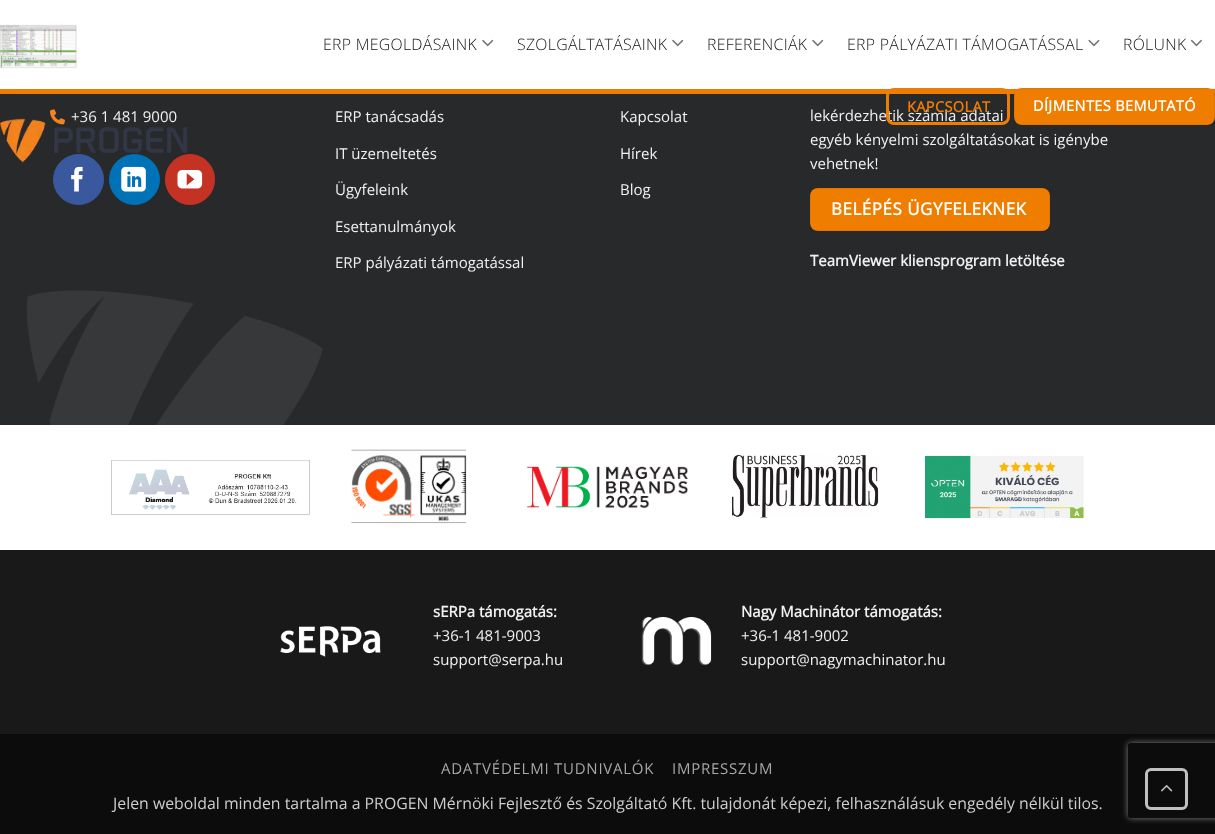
<svg xmlns="http://www.w3.org/2000/svg" width="1215" height="834">
<defs>
<clipPath id="clip1"><path d="M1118 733h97v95h-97zm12.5 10h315c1.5 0 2.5 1 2.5 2.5v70c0 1.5-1 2.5-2.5 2.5h-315c-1.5 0-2.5-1-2.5-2.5v-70c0-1.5 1-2.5 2.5-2.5z" clip-rule="evenodd"/></clipPath>
</defs>
<rect width="100%" height="100%" fill="#0c0c0c"/>
<rect width="1215" height="89" fill="#fff"/>
<rect y="89" width="1215" height="5" fill="#ef7d00"/>
<image x="0" y="24" width="77" height="45" href="media/1.png"/>
<rect y="94" width="1215" height="331" fill="#27292b"/>
<image x="50" y="109" width="15" height="16" href="media/6.png"/>
<text x="71" y="122" style="font-family:Open Sans;font-size:15px;fill:#f1f1f1">+36 1 481 9000</text>
<circle cx="78.5" cy="179.5" r="25" fill="#3a589d" stroke="#3a589d"/>
<circle cx="134.5" cy="179.5" r="25" fill="#0072b7" stroke="#0072b7"/>
<rect x="165.5" y="154.5" width="49" height="50" rx="24.5" fill="#c33223" stroke="#c33223"/>
<image x="0" y="118" width="188" height="45" href="media/2.png"/>
<text x="323" y="50" style="font-family:Open Sans;font-size:15.85px;font-weight:300;letter-spacing:0.3px;fill:#131313">ERP MEGOLDÁSAINK</text>
<image x="482" y="39" width="12" height="8" href="media/3.png"/>
<text x="517" y="50" style="font-family:Open Sans;font-size:15.85px;font-weight:300;letter-spacing:0.3px;fill:#131313">SZOLGÁLTATÁSAINK</text>
<image x="672" y="39" width="12" height="8" href="media/3.png"/>
<text x="707" y="50" style="font-family:Open Sans;font-size:15.85px;font-weight:300;letter-spacing:0.3px;fill:#131313">REFERENCIÁK</text>
<image x="812" y="39" width="12" height="8" href="media/3.png"/>
<text x="847" y="50" style="font-family:Open Sans;font-size:15.85px;font-weight:300;letter-spacing:0.3px;fill:#131313">ERP PÁLYÁZATI TÁMOGATÁSSAL</text>
<image x="1088" y="39" width="12" height="8" href="media/4.png"/>
<text x="1123" y="50" style="font-family:Open Sans;font-size:15.85px;font-weight:300;letter-spacing:0.3px;fill:#131313">RÓLUNK</text>
<image x="1190" y="39" width="12" height="8" href="media/5.png"/>
<text x="810" y="121" style="font-family:Open Sans;font-size:15px;fill:#f1f1f1">lekérdezhetik számla adatai</text>
<rect x="887.5" y="89.5" width="121" height="34" rx="6.5" fill="none" stroke="#ef7d00" stroke-width="3"/>
<text x="907" y="112" style="font-family:Open Sans;font-size:14.5px;font-weight:bold;letter-spacing:0.4px;fill:#ef7d00">KAPCSOLAT</text>
<rect x="1014" y="88" width="201" height="37" rx="8" fill="#ef7d00"/>
<rect x="1014.5" y="88.5" width="200" height="36" fill="none" stroke="#0000000d"/>
<text x="1033" y="111" style="font-family:Open Sans;font-size:14.5px;font-weight:bold;letter-spacing:0.4px;fill:#fff">DÍJMENTES BEMUTATÓ</text>
<rect x="19" y="89" width="1177" height="1" fill="#7777771a"/>
<image x="71" y="166" width="12" height="26" href="media/7.png"/>
<image x="121" y="166" width="25" height="26" href="media/8.png"/>
<image x="177" y="170" width="26" height="19" href="media/9.png"/>
<text x="335" y="122" style="font-family:Open Sans;font-size:15px;fill:#f1f1f1">ERP tanácsadás</text>
<text x="335" y="159" style="font-family:Open Sans;font-size:15px;fill:#f1f1f1">IT üzemeltetés</text>
<text x="335" y="195" style="font-family:Open Sans;font-size:15px;fill:#f1f1f1">Ügyfeleink</text>
<text x="335" y="232" style="font-family:Open Sans;font-size:15px;fill:#f1f1f1">Esettanulmányok</text>
<text x="335" y="268" style="font-family:Open Sans;font-size:15px;fill:#f1f1f1">ERP pályázati támogatással</text>
<text x="620" y="122" style="font-family:Open Sans;font-size:15px;fill:#f1f1f1">Kapcsolat</text>
<text x="620" y="159" style="font-family:Open Sans;font-size:15px;fill:#f1f1f1">Hírek</text>
<text x="620" y="195" style="font-family:Open Sans;font-size:15px;fill:#f1f1f1">Blog</text>
<text x="810" y="145" style="font-family:Open Sans;font-size:15px;fill:#f1f1f1">egyéb kényelmi szolgáltatásokat is igénybe</text>
<text x="810" y="169" style="font-family:Open Sans;font-size:15px;fill:#f1f1f1">vehetnek!</text>
<rect x="810" y="188" width="240" height="43" rx="8" fill="#ef7d00"/>
<rect x="810.5" y="188.5" width="239" height="42" fill="none" stroke="#0000000d"/>
<text x="831" y="215" style="font-family:Open Sans;font-size:17px;font-weight:bold;letter-spacing:0.5px;fill:#fff">BELÉPÉS ÜGYFELEKNEK</text>
<text x="810" y="266" style="font-family:Open Sans;font-size:15px;font-weight:bold;fill:#f1f1f1">TeamViewer kliensprogram letöltése</text>
<image x="26" y="290" width="297" height="135" href="media/10.png"/>
<rect y="425" width="1215" height="125" fill="#fff"/>
<rect x="111.5" y="460.5" width="198" height="54" fill="none" stroke="#ccc"/>
<image x="112" y="460" width="197" height="50" href="media/11.png"/>
<image x="351" y="449" width="116" height="75" href="media/12.png"/>
<image x="526" y="466" width="163" height="43" href="media/13.png"/>
<image x="732" y="454" width="147" height="64" href="media/14.png"/>
<image x="925" y="455" width="159" height="64" href="media/15.png"/>
<rect y="550" width="1215" height="184" fill="#191919"/>
<image x="280" y="626" width="101" height="31" href="media/16.png"/>
<text x="433" y="617" style="font-family:Open Sans;font-size:15px;font-weight:bold;fill:#f1f1f1">sERPa támogatás:</text>
<text x="433" y="641" style="font-family:Open Sans;font-size:15px;fill:#f1f1f1">+36-1 481-9003</text>
<text x="433" y="665" style="font-family:Open Sans;font-size:15px;fill:#f1f1f1">support@serpa.hu</text>
<image x="641" y="617" width="71" height="49" href="media/17.png"/>
<text x="741" y="617" style="font-family:Open Sans;font-size:15px;font-weight:bold;fill:#f1f1f1">Nagy Machinátor támogatás:</text>
<text x="741" y="641" style="font-family:Open Sans;font-size:15px;fill:#f1f1f1">+36-1 481-9002</text>
<text x="741" y="665" style="font-family:Open Sans;font-size:15px;fill:#f1f1f1">support@nagymachinator.hu</text>
<text x="441" y="774" style="font-family:Open Sans;font-size:15px;letter-spacing:0.75px;fill:#a7a7a7">ADATVÉDELMI TUDNIVALÓK</text>
<text x="672" y="774" style="font-family:Open Sans;font-size:15px;letter-spacing:0.75px;fill:#a7a7a7">IMPRESSZUM</text>
<text x="113" y="809" style="font-family:Open Sans;font-size:15.85px;fill:#cecece">Jelen weboldal minden tartalma a PROGEN Mérnöki Fejlesztő és Szolgáltató Kft. tulajdonát képezi, felhasználásuk engedély nélkül tilos.</text>
<g clip-path="url(#clip1)">
<rect x="1128" y="743" width="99" height="75" rx="2.5" fill="#808080" filter="blur(3px)"/>
</g>
<rect x="1146.5" y="769.5" width="40" height="39" rx="4.5" fill="none" stroke="#c0c0c0" stroke-width="3"/>
<image x="1160" y="784" width="13" height="8" href="media/18.png"/>
</svg>
